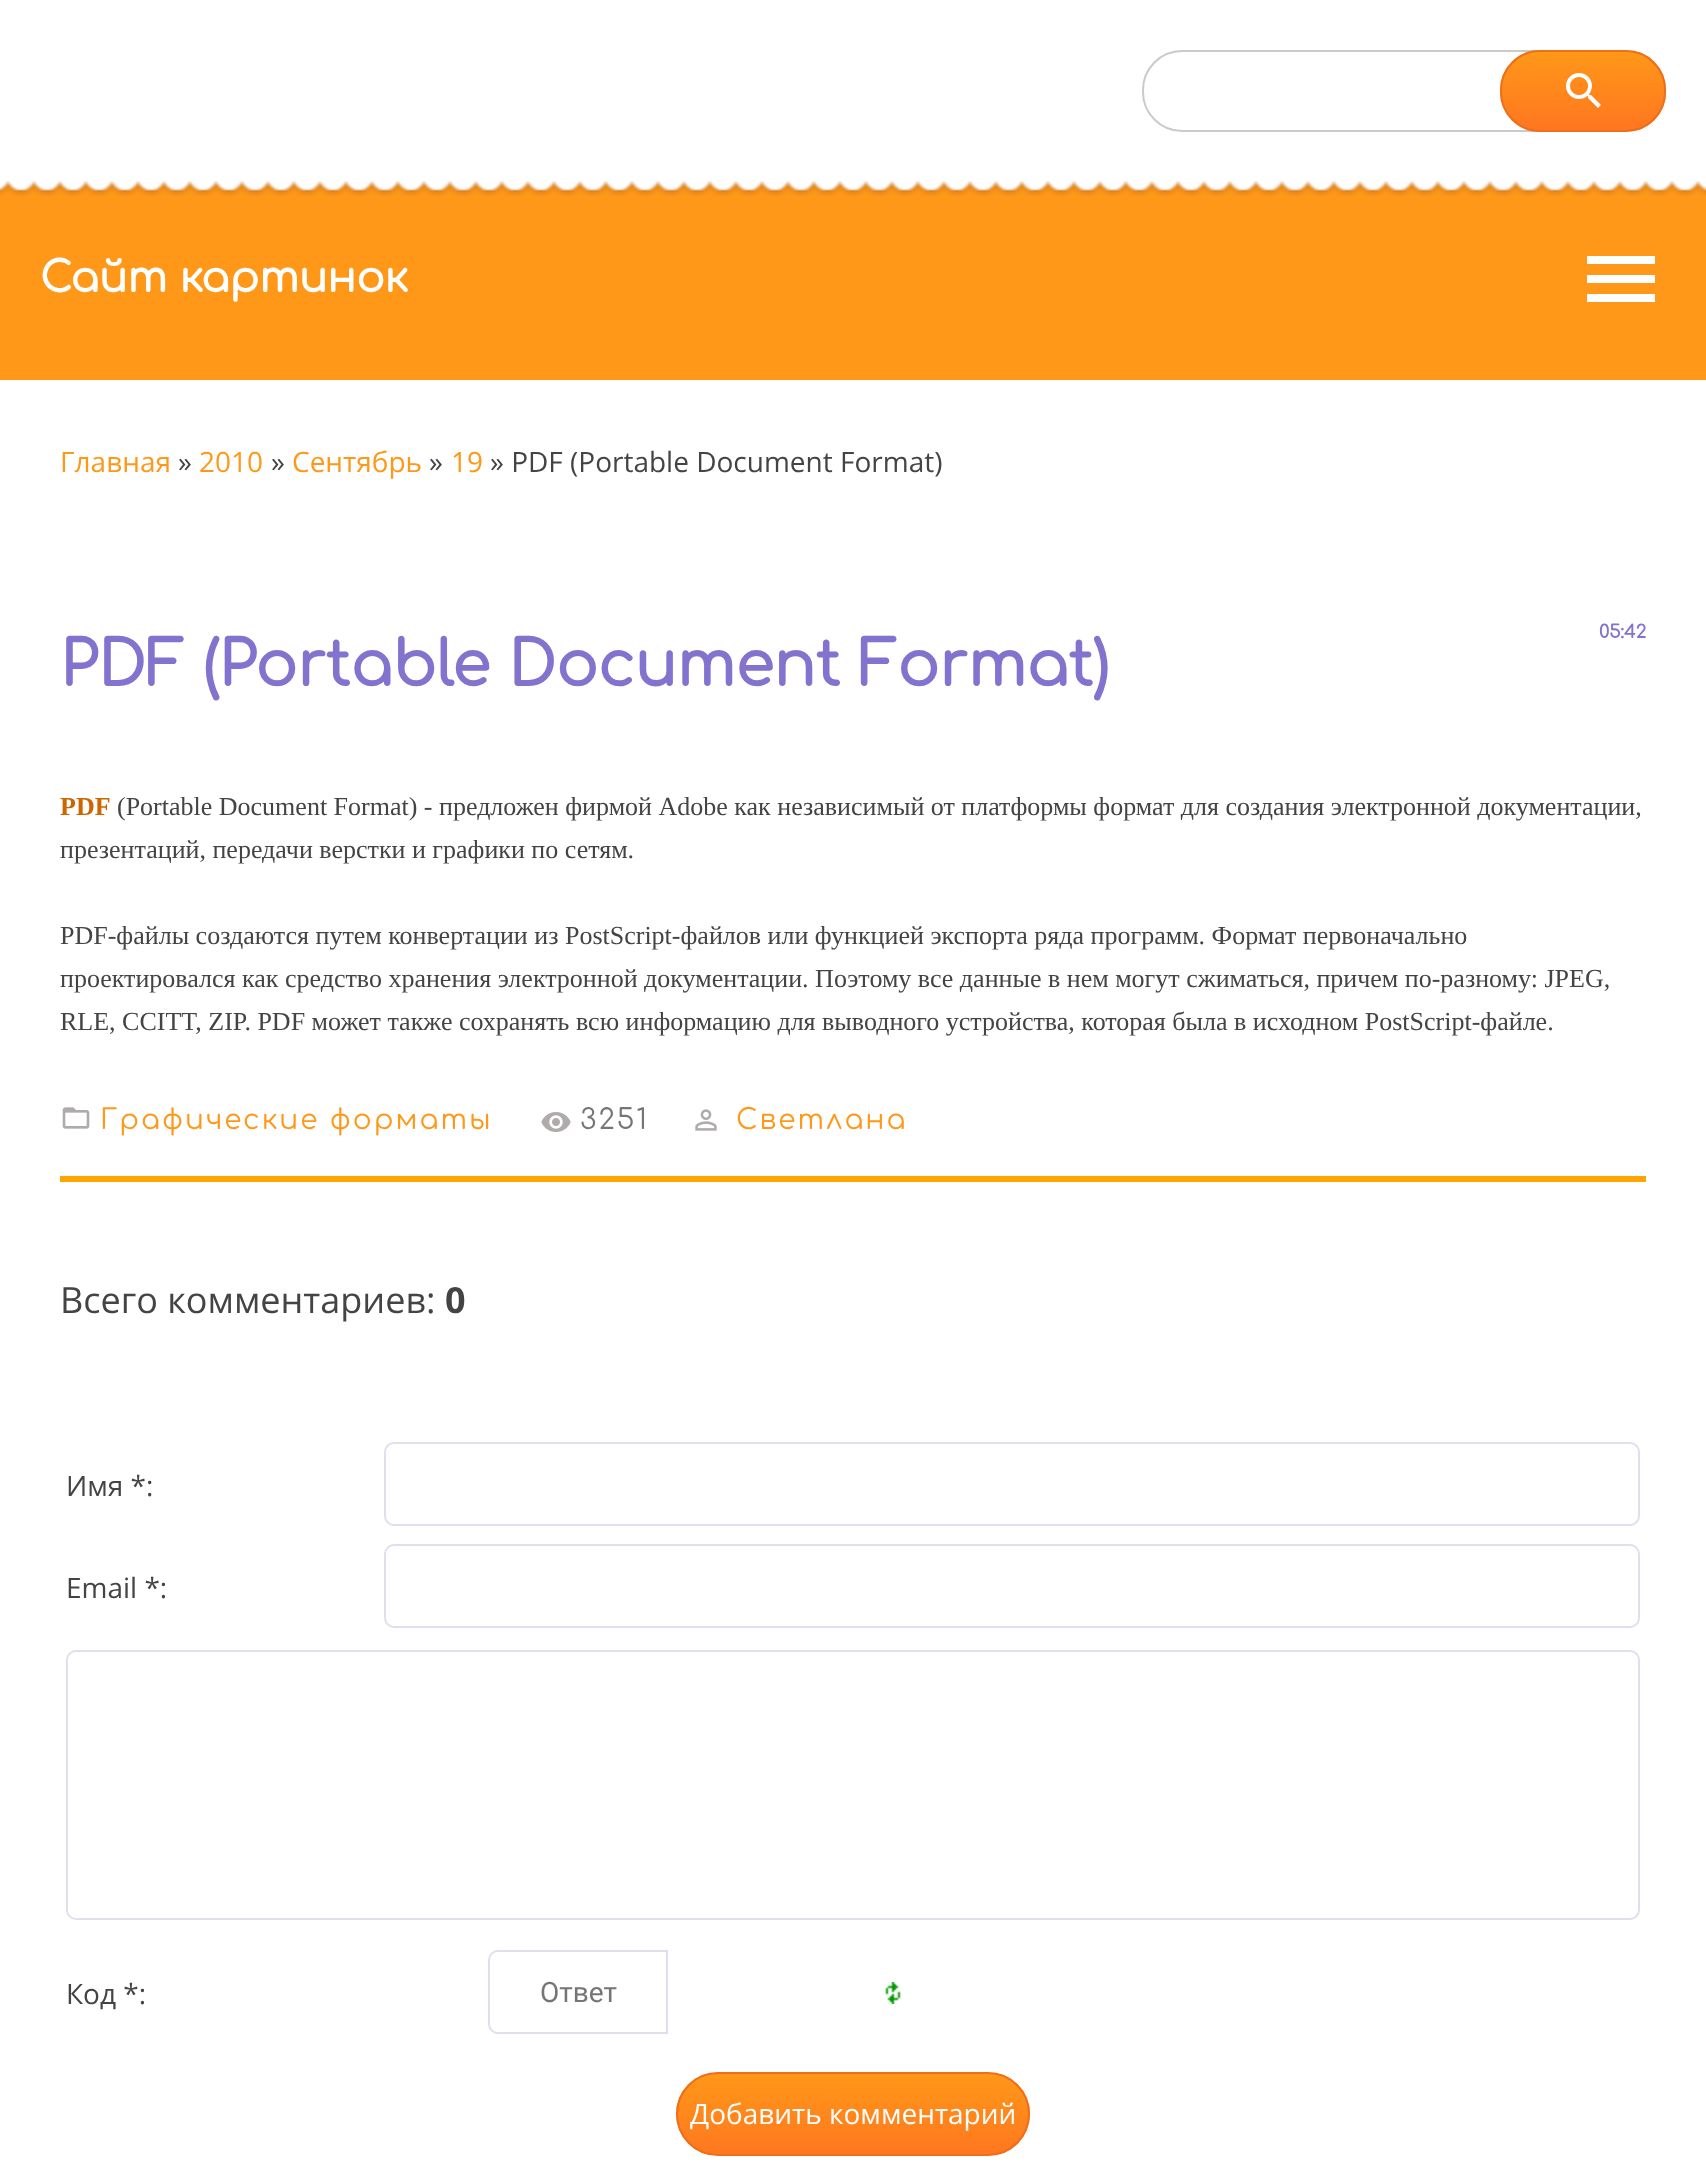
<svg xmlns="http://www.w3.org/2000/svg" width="1706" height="2171">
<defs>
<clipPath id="clip1"><rect x="1500" y="50" width="166" height="82" rx="40"/></clipPath>
<linearGradient id="g1" gradientUnits="userSpaceOnUse" x1="1583" y1="129" x2="1583" y2="51"><stop offset="0" stop-color="#ff7720"/><stop offset="1" stop-color="#ff9818"/></linearGradient>
<clipPath id="clip2"><rect x="676" y="2072" width="354" height="84" rx="42"/></clipPath>
<linearGradient id="g2" gradientUnits="userSpaceOnUse" x1="853" y1="2154" x2="853" y2="2074"><stop offset="0" stop-color="#ff7720"/><stop offset="1" stop-color="#ff9818"/></linearGradient>
</defs>
<rect width="100%" height="100%" fill="#fff"/>
<rect y="181" width="1706" height="199" fill="#ff9818"/>
<image x="0" y="180" width="1706" height="16" href="media/1.png"/>
<rect x="1143" y="51" width="522" height="80" rx="39" fill="none" stroke="#cacaca" stroke-width="2"/>
<g clip-path="url(#clip1)">
<rect x="1500" y="52" width="166" height="78" fill="url(#g1)"/>
</g>
<rect x="1501" y="51" width="164" height="80" rx="39" fill="none" stroke="#ef6e19" stroke-width="2"/>
<image x="1566" y="73" width="35" height="35" href="media/2.png"/>
<text x="40" y="292" style="font-family:Comfortaa;font-size:42px;font-weight:bold;fill:#fff">Сайт картинок</text>
<path d="M1587 256h68v8h-68zm0 27v-8h68v8zm0 19v-8h68v8z" fill="#fff"/>
<text x="60" y="472" style="font-family:Open Sans;font-size:28px;fill:#ff9818">Главная</text>
<text x="178" y="472" style="font-family:Open Sans;font-size:28px;fill:#444">»</text>
<text x="199" y="472" style="font-family:Open Sans;font-size:28px;fill:#ff9818">2010</text>
<text x="271" y="472" style="font-family:Open Sans;font-size:28px;fill:#444">»</text>
<text x="292" y="472" style="font-family:Open Sans;font-size:28px;fill:#ff9818">Сентябрь</text>
<text x="429" y="472" style="font-family:Open Sans;font-size:28px;fill:#444">»</text>
<text x="451" y="472" style="font-family:Open Sans;font-size:28px;fill:#ff9818">19</text>
<text x="490" y="472" style="font-family:Open Sans;font-size:28px;fill:#444">» PDF (Portable Document Format)</text>
<rect x="60" y="1176" width="1586" height="6" fill="#ffa500"/>
<text x="1599" y="638" style="font-family:Comfortaa;font-size:18px;font-weight:bold;fill:#8373ce">05:42</text>
<text x="60" y="686" style="font-family:Comfortaa;font-size:62px;font-weight:bold;fill:#8373ce">PDF (Portable Document Format)</text>
<text x="60" y="815" style="font-family:Liberation Serif;font-size:26px;font-weight:bold;fill:#c60">PDF</text>
<text x="117" y="815" style="font-family:Liberation Serif;font-size:26px;fill:#444">(Portable Document Format) - предложен фирмой Adobe как независимый от платформы формат для создания электронной документации,</text>
<text x="60" y="858" style="font-family:Liberation Serif;font-size:26px;fill:#444">презентаций, передачи верстки и графики по сетям.</text>
<text x="60" y="944" style="font-family:Liberation Serif;font-size:26px;fill:#444">PDF-файлы создаются путем конвертации из PostScript-файлов или функцией экспорта ряда программ. Формат первоначально</text>
<text x="60" y="987" style="font-family:Liberation Serif;font-size:26px;fill:#444">проектировался как средство хранения электронной документации. Поэтому все данные в нем могут сжиматься, причем по-разному: JPEG,</text>
<text x="60" y="1030" style="font-family:Liberation Serif;font-size:26px;fill:#444">RLE, CCITT, ZIP. PDF может также сохранять всю информацию для выводного устройства, которая была в исходном PostScript-файле.</text>
<image x="62" y="1107" width="28" height="22" href="media/3.png"/>
<text x="100" y="1129" style="font-family:Comfortaa;font-size:28px;letter-spacing:2px;fill:#ff9818">Графические форматы</text>
<image x="541" y="1112" width="30" height="20" href="media/4.png"/>
<text x="580" y="1129" style="font-family:Comfortaa;font-size:28px;letter-spacing:2px;fill:#757575">3251</text>
<image x="695" y="1109" width="22" height="22" href="media/5.png"/>
<text x="736" y="1129" style="font-family:Comfortaa;font-size:28px;letter-spacing:2px;fill:#ff9818">Светлана</text>
<text x="60" y="1313" style="font-family:Open Sans;font-size:36px;fill:#444">Всего комментариев:</text>
<text x="445" y="1313" style="font-family:Open Sans;font-size:36px;font-weight:bold;fill:#444">0</text>
<text x="66" y="1496" style="font-family:Open Sans;font-size:28px;fill:#444">Имя *:</text>
<rect x="385" y="1443" width="1254" height="82" rx="9" fill="none" stroke="#dfdfed" stroke-width="2"/>
<text x="66" y="1598" style="font-family:Open Sans;font-size:28px;fill:#444">Email *:</text>
<rect x="385" y="1545" width="1254" height="82" rx="9" fill="none" stroke="#dfdfed" stroke-width="2"/>
<rect x="67" y="1651" width="1572" height="268" rx="9" fill="none" stroke="#dfdfed" stroke-width="2"/>
<text x="66" y="2004" style="font-family:Open Sans;font-size:28px;fill:#444">Код *:</text>
<path d="M498 1951h169v82h-169c-5 0-9-4-9-9v-64c0-5 4-9 9-9z" fill="none" stroke="#dfdfed" stroke-width="2"/>
<text x="540" y="2002" style="font-family:Roboto;font-size:28px;fill:#757575">Ответ</text>
<image x="885" y="1982" width="16" height="22" href="media/6.png"/>
<g clip-path="url(#clip2)">
<rect x="676" y="2074" width="354" height="80" fill="url(#g2)"/>
</g>
<rect x="677" y="2073" width="352" height="82" rx="41" fill="none" stroke="#ef6e19" stroke-width="2"/>
<text x="690" y="2124" style="font-family:Open Sans;font-size:28px;fill:#fff">Добавить комментарий</text>
</svg>
